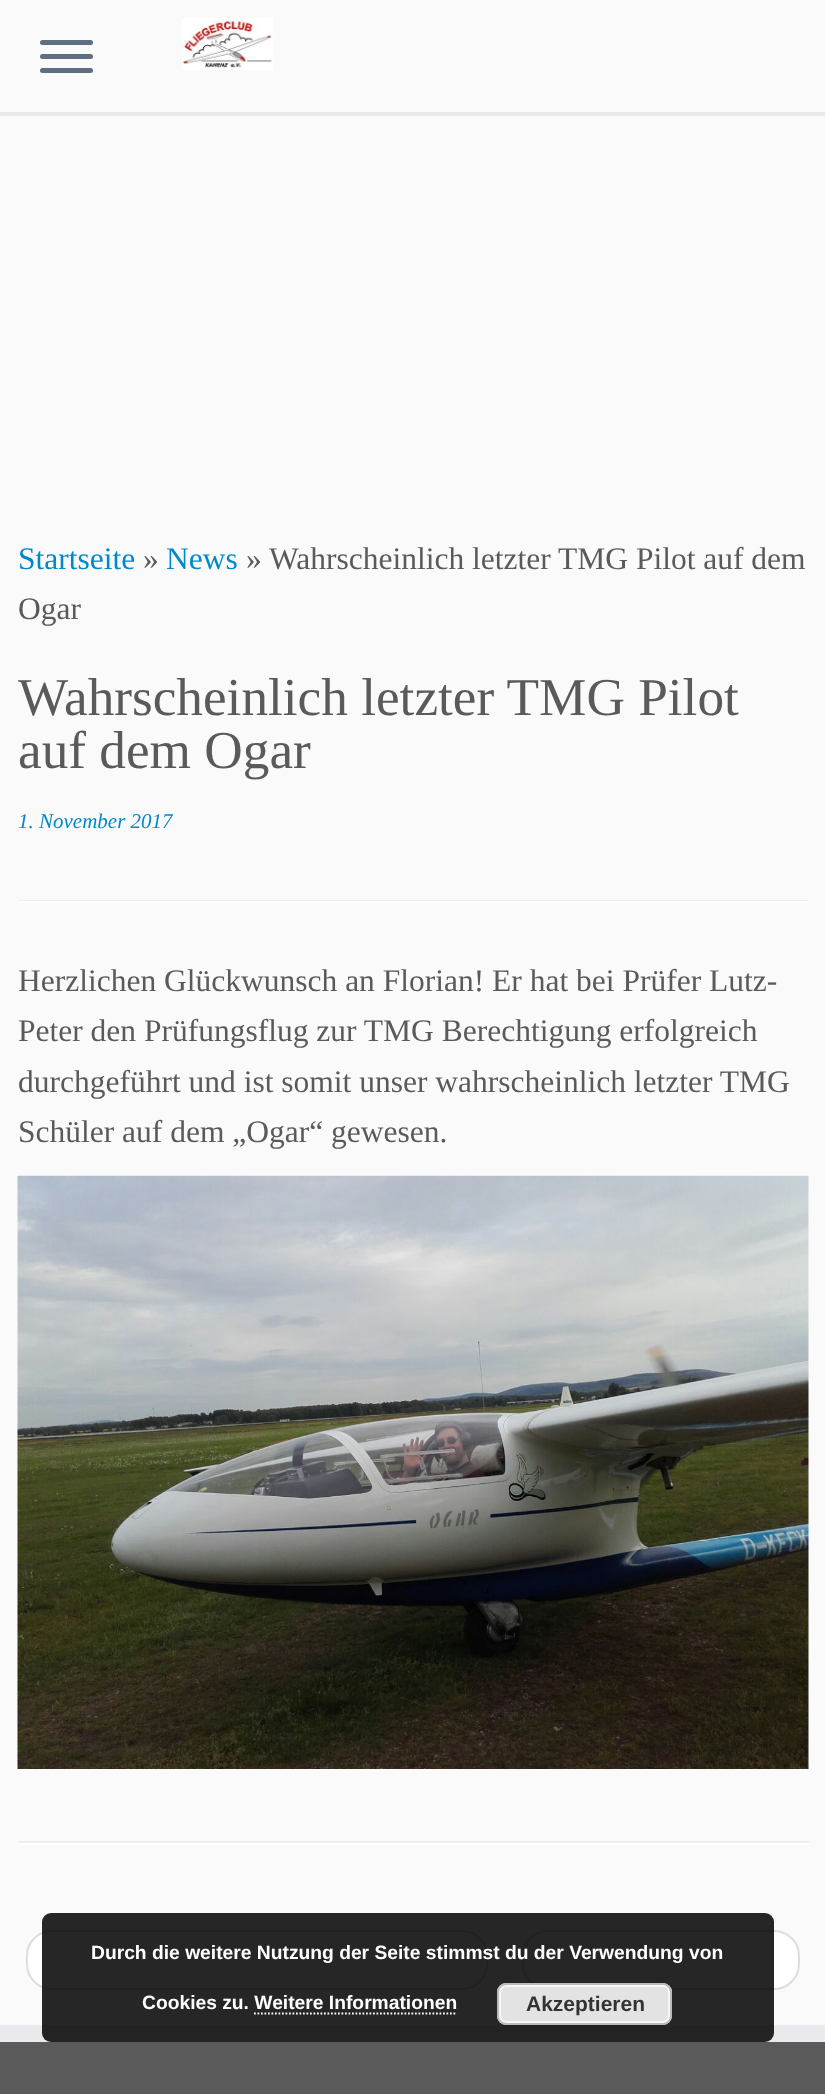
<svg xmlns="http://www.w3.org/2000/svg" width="825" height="2094">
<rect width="100%" height="100%" fill="#fafafa"/>
<rect y="112" width="825" height="4" fill="#e9eaee"/>
<rect x="40" y="40" width="53" height="5" rx="2.5" fill="#5f6f81"/>
<rect x="40" y="54" width="53" height="5" rx="2.5" fill="#5f6f81"/>
<rect x="40" y="68" width="53" height="5" rx="2.5" fill="#5f6f81"/>
<image x="182" y="18" width="91" height="52" href="media/1.png"/>
<text x="18" y="569" style="font-family:Liberation Serif;font-size:31.5px;fill:#08c">Startseite</text>
<text x="143" y="569" style="font-family:Liberation Serif;font-size:31.5px;fill:#5a5a5a">»</text>
<text x="166" y="569" style="font-family:Liberation Serif;font-size:31.5px;fill:#08c">News</text>
<text x="246" y="569" style="font-family:Liberation Serif;font-size:31.5px;fill:#5a5a5a">»</text>
<text x="269" y="569" style="font-family:Liberation Serif;font-size:31.5px;fill:#5a5a5a">Wahrscheinlich letzter TMG Pilot auf dem</text>
<text x="18" y="619" style="font-family:Liberation Serif;font-size:31.5px;fill:#5a5a5a">Ogar</text>
<text x="18" y="715" style="font-family:Liberation Serif;font-size:53.25px;fill:#5a5a5a">Wahrscheinlich letzter TMG Pilot</text>
<text x="18" y="768" style="font-family:Liberation Serif;font-size:53.25px;fill:#5a5a5a">auf dem Ogar</text>
<text x="18" y="828" style="font-family:Liberation Serif;font-size:21px;font-style:italic;fill:#08c">1. November 2017</text>
<rect x="18" y="900" width="791" height="1" fill="#eee"/>
<rect x="18" y="901" width="791" height="2" fill="#fff"/>
<text x="18" y="991" style="font-family:Liberation Serif;font-size:31.5px;fill:#5a5a5a">Herzlichen Glückwunsch an Florian! Er hat bei Prüfer Lutz-</text>
<text x="18" y="1041" style="font-family:Liberation Serif;font-size:31.5px;fill:#5a5a5a">Peter den Prüfungsflug zur TMG Berechtigung erfolgreich</text>
<text x="18" y="1092" style="font-family:Liberation Serif;font-size:31.5px;fill:#5a5a5a">durchgeführt und ist somit unser wahrscheinlich letzter TMG</text>
<text x="18" y="1142" style="font-family:Liberation Serif;font-size:31.5px;fill:#5a5a5a">Schüler auf dem „Ogar“ gewesen.</text>
<image x="17" y="1175" width="792" height="594" href="media/2.png"/>
<rect x="18" y="1841" width="791" height="2" fill="#eee"/>
<rect x="18" y="1843" width="791" height="2" fill="#fff"/>
<rect x="27" y="1931" width="460" height="58" rx="25" fill="#fff" stroke="#ddd" stroke-width="2"/>
<rect x="523" y="1931" width="276" height="58" rx="25" fill="#fff" stroke="#ddd" stroke-width="2"/>
<rect y="2042" width="825" height="52" fill="#5a5a5a"/>
<rect y="2025" width="825" height="17" fill="#e9eaee"/>
<rect x="42" y="1913" width="732" height="129" rx="9" fill="#000000d9"/>
<text x="91" y="1959" style="font-family:Liberation Sans;font-size:19.25px;font-weight:bold;fill:#fff">Durch die weitere Nutzung der Seite stimmst du der Verwendung von</text>
<text x="142" y="2009" style="font-family:Liberation Sans;font-size:19.25px;font-weight:bold;fill:#fff">Cookies zu. Weitere Informationen</text>
<rect x="497" y="1983" width="175" height="42" rx="9" fill="#e3e3e3"/>
<rect x="500" y="1986" width="169" height="36" rx="6" fill="none" stroke="#f6f6f6" stroke-width="2"/>
<rect x="498" y="1984" width="173" height="40" rx="8" fill="none" stroke="#bbb" stroke-width="2"/>
<text x="526" y="2011" style="font-family:Liberation Sans;font-size:21px;font-weight:bold;fill:#333">Akzeptieren</text>
<path d="M254 2013.5h203" fill="none" stroke="#fff" stroke-width="1.8" stroke-dasharray="1.75 1.75"/>
</svg>
